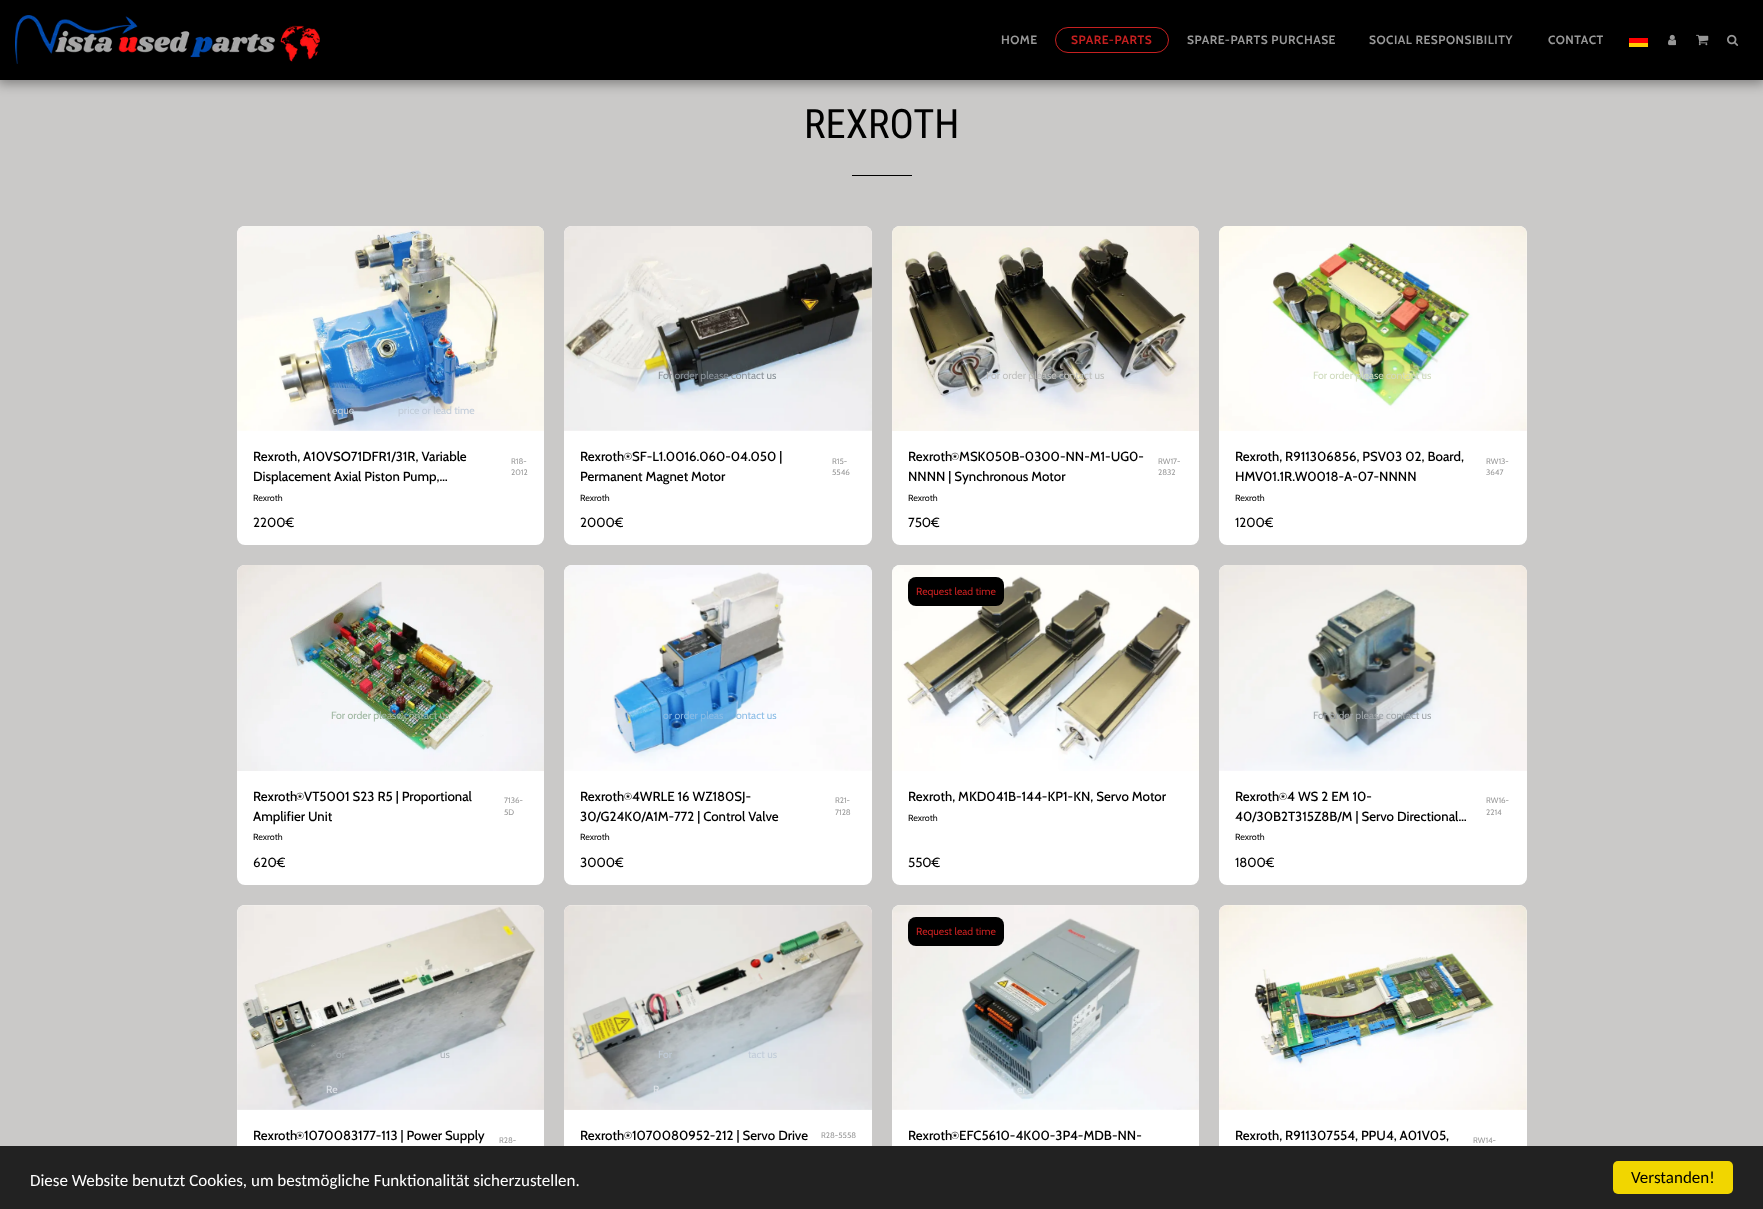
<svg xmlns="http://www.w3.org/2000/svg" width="1763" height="1209">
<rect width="100%" height="100%" fill="#cac9c8"/>
<rect x="-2" width="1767" height="84" fill="#00000059" filter="blur(6px)"/>
<rect width="1763" height="80" fill="#000"/>
<image x="15" y="15" width="305" height="49" href="media/1.png"/>
<text x="1001" y="44" style="font-family:Cabin;font-size:12px;font-weight:bold;letter-spacing:0.5px;fill:#999">HOME</text>
<rect x="1055.5" y="27.5" width="113" height="25" rx="12.5" fill="none" stroke="#c62020"/>
<text x="1071" y="44" style="font-family:Cabin;font-size:12px;font-weight:bold;letter-spacing:0.5px;fill:#c62020">SPARE-PARTS</text>
<text x="1187" y="44" style="font-family:Cabin;font-size:12px;font-weight:bold;letter-spacing:0.5px;fill:#999">SPARE-PARTS PURCHASE</text>
<text x="1369" y="44" style="font-family:Cabin;font-size:12px;font-weight:bold;letter-spacing:0.5px;fill:#999">SOCIAL RESPONSIBILITY</text>
<text x="1548" y="44" style="font-family:Cabin;font-size:12px;font-weight:bold;letter-spacing:0.5px;fill:#999">CONTACT</text>
<rect x="1629" y="43" width="19" height="4" fill="#ffce00"/>
<rect x="1629" y="38" width="19" height="5" fill="#f00"/>
<image x="1668" y="34" width="8" height="12" href="media/2.png"/>
<image x="1696" y="34" width="13" height="12" href="media/3.png"/>
<image x="1727" y="34" width="12" height="12" href="media/4.png"/>
<text x="804" y="138" style="font-family:Roboto Condensed;font-size:40.5px;fill:#000">REXROTH</text>
<rect x="852" y="175" width="60" height="1" fill="#000"/>
<rect x="237" y="226" width="307" height="319" rx="8" fill="#fff"/>
<image x="237" y="226" width="307" height="205" href="media/5.png"/>
<text x="353" y="379" style="font-family:Cabin;font-size:10.5px;fill:#2c7ccb">r</text>
<text x="332" y="414" style="font-family:Cabin;font-size:10.5px;fill:#c1ccd9">eque</text>
<text x="398" y="414" style="font-family:Cabin;font-size:10.5px;fill:#c1ccd9">price or lead time</text>
<text x="253" y="461" style="font-family:Cabin;font-size:13.25px;font-weight:500;fill:#000">Rexroth, A10VSO71DFR1/31R, Variable</text>
<text x="253" y="481" style="font-family:Cabin;font-size:13.25px;font-weight:500;fill:#000">Displacement Axial Piston Pump,…</text>
<text x="511" y="464" style="font-family:Cabin;font-size:8px;fill:#999">R18-</text>
<text x="511" y="475" style="font-family:Cabin;font-size:8px;fill:#999">2012</text>
<text x="253" y="501" style="font-family:Cabin;font-size:9px;fill:#000">Rexroth</text>
<text x="253" y="527" style="font-family:Cabin;font-size:13.25px;fill:#000">2200€</text>
<rect x="564" y="226" width="308" height="319" rx="8" fill="#fff"/>
<image x="564" y="226" width="308" height="205" href="media/6.png"/>
<text x="658" y="379" style="font-family:Cabin;font-size:10.5px;fill:#8a9299">For order please contact us</text>
<text x="580" y="461" style="font-family:Cabin;font-size:13.25px;font-weight:500;fill:#000">Rexroth</text>
<text x="624" y="461" style="font-family:FreeSerif;font-size:13.25px;fill:#000">⍟</text>
<text x="632" y="461" style="font-family:Cabin;font-size:13.25px;font-weight:500;fill:#000">SF-L1.0016.060-04.050 |</text>
<text x="580" y="481" style="font-family:Cabin;font-size:13.25px;font-weight:500;fill:#000">Permanent Magnet Motor</text>
<text x="832" y="464" style="font-family:Cabin;font-size:8px;fill:#999">R15-</text>
<text x="832" y="475" style="font-family:Cabin;font-size:8px;fill:#999">5546</text>
<text x="580" y="501" style="font-family:Cabin;font-size:9px;fill:#000">Rexroth</text>
<text x="580" y="527" style="font-family:Cabin;font-size:13.25px;fill:#000">2000€</text>
<rect x="892" y="226" width="307" height="319" rx="8" fill="#fff"/>
<image x="892" y="226" width="307" height="205" href="media/7.png"/>
<text x="986" y="379" style="font-family:Cabin;font-size:10.5px;fill:#bfc0be">For order please contact us</text>
<text x="908" y="461" style="font-family:Cabin;font-size:13.25px;font-weight:500;fill:#000">Rexroth</text>
<text x="951" y="461" style="font-family:FreeSerif;font-size:13.25px;fill:#000">⍟</text>
<text x="959" y="461" style="font-family:Cabin;font-size:13.25px;font-weight:500;fill:#000">MSK050B-0300-NN-M1-UG0-</text>
<text x="908" y="481" style="font-family:Cabin;font-size:13.25px;font-weight:500;fill:#000">NNNN | Synchronous Motor</text>
<text x="1158" y="464" style="font-family:Cabin;font-size:8px;fill:#999">RW17-</text>
<text x="1158" y="475" style="font-family:Cabin;font-size:8px;fill:#999">2832</text>
<text x="908" y="501" style="font-family:Cabin;font-size:9px;fill:#000">Rexroth</text>
<text x="908" y="527" style="font-family:Cabin;font-size:13.25px;fill:#000">750€</text>
<rect x="1219" y="226" width="308" height="319" rx="8" fill="#fff"/>
<image x="1219" y="226" width="308" height="205" href="media/8.png"/>
<text x="1313" y="379" style="font-family:Cabin;font-size:10.5px;fill:#cfdbbd">For order please contact us</text>
<text x="1235" y="461" style="font-family:Cabin;font-size:13.25px;font-weight:500;fill:#000">Rexroth, R911306856, PSV03 02, Board,</text>
<text x="1235" y="481" style="font-family:Cabin;font-size:13.25px;font-weight:500;fill:#000">HMV01.1R.W0018-A-07-NNNN</text>
<text x="1486" y="464" style="font-family:Cabin;font-size:8px;fill:#999">RW13-</text>
<text x="1486" y="475" style="font-family:Cabin;font-size:8px;fill:#999">3647</text>
<text x="1235" y="501" style="font-family:Cabin;font-size:9px;fill:#000">Rexroth</text>
<text x="1235" y="527" style="font-family:Cabin;font-size:13.25px;fill:#000">1200€</text>
<rect x="237" y="565" width="307" height="320" rx="8" fill="#fff"/>
<image x="237" y="565" width="307" height="206" href="media/9.png"/>
<text x="331" y="719" style="font-family:Cabin;font-size:10.5px;fill:#9fb7a1">For order please contact us</text>
<text x="253" y="801" style="font-family:Cabin;font-size:13.25px;font-weight:500;fill:#000">Rexroth</text>
<text x="296" y="801" style="font-family:FreeSerif;font-size:13.25px;fill:#000">⍟</text>
<text x="304" y="801" style="font-family:Cabin;font-size:13.25px;font-weight:500;fill:#000">VT5001 S23 R5 | Proportional</text>
<text x="253" y="821" style="font-family:Cabin;font-size:13.25px;font-weight:500;fill:#000">Amplifier Unit</text>
<text x="504" y="803" style="font-family:Cabin;font-size:8px;fill:#999">7136-</text>
<text x="504" y="815" style="font-family:Cabin;font-size:8px;fill:#999">5D</text>
<text x="253" y="840" style="font-family:Cabin;font-size:9px;fill:#000">Rexroth</text>
<text x="253" y="867" style="font-family:Cabin;font-size:13.25px;fill:#000">620€</text>
<rect x="564" y="565" width="308" height="320" rx="8" fill="#fff"/>
<image x="564" y="565" width="308" height="206" href="media/10.png"/>
<text x="663" y="719" style="font-family:Cabin;font-size:10.5px;fill:#8abce6">or order pleas</text>
<text x="736" y="719" style="font-family:Cabin;font-size:10.5px;fill:#8abce6">ontact us</text>
<text x="580" y="801" style="font-family:Cabin;font-size:13.25px;font-weight:500;fill:#000">Rexroth</text>
<text x="624" y="801" style="font-family:FreeSerif;font-size:13.25px;fill:#000">⍟</text>
<text x="632" y="801" style="font-family:Cabin;font-size:13.25px;font-weight:500;fill:#000">4WRLE 16 WZ180SJ-</text>
<text x="580" y="821" style="font-family:Cabin;font-size:13.25px;font-weight:500;fill:#000">30/G24K0/A1M-772 | Control Valve</text>
<text x="835" y="803" style="font-family:Cabin;font-size:8px;fill:#999">R21-</text>
<text x="835" y="815" style="font-family:Cabin;font-size:8px;fill:#999">7128</text>
<text x="580" y="840" style="font-family:Cabin;font-size:9px;fill:#000">Rexroth</text>
<text x="580" y="867" style="font-family:Cabin;font-size:13.25px;fill:#000">3000€</text>
<rect x="892" y="565" width="307" height="320" rx="8" fill="#fff"/>
<image x="892" y="565" width="307" height="206" href="media/11.png"/>
<rect x="908" y="577" width="96" height="29" rx="8" fill="#000"/>
<text x="916" y="595" style="font-family:Cabin;font-size:10.5px;fill:#c62020">Request lead time</text>
<text x="908" y="801" style="font-family:Cabin;font-size:13.25px;font-weight:500;fill:#000">Rexroth, MKD041B-144-KP1-KN, Servo Motor</text>
<text x="908" y="821" style="font-family:Cabin;font-size:9px;fill:#000">Rexroth</text>
<text x="908" y="867" style="font-family:Cabin;font-size:13.25px;fill:#000">550€</text>
<rect x="1219" y="565" width="308" height="320" rx="8" fill="#fff"/>
<image x="1219" y="565" width="308" height="206" href="media/12.png"/>
<text x="1313" y="719" style="font-family:Cabin;font-size:10.5px;fill:#a1a7aa">For order please contact us</text>
<text x="1235" y="801" style="font-family:Cabin;font-size:13.25px;font-weight:500;fill:#000">Rexroth</text>
<text x="1279" y="801" style="font-family:FreeSerif;font-size:13.25px;fill:#000">⍟</text>
<text x="1287" y="801" style="font-family:Cabin;font-size:13.25px;font-weight:500;fill:#000">4 WS 2 EM 10-</text>
<text x="1235" y="821" style="font-family:Cabin;font-size:13.25px;font-weight:500;fill:#000">40/30B2T315Z8B/M | Servo Directional…</text>
<text x="1486" y="803" style="font-family:Cabin;font-size:8px;fill:#999">RW16-</text>
<text x="1486" y="815" style="font-family:Cabin;font-size:8px;fill:#999">2214</text>
<text x="1235" y="840" style="font-family:Cabin;font-size:9px;fill:#000">Rexroth</text>
<text x="1235" y="867" style="font-family:Cabin;font-size:13.25px;fill:#000">1800€</text>
<rect x="237" y="905" width="307" height="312" rx="8" fill="#fff"/>
<image x="237" y="905" width="307" height="205" href="media/13.png"/>
<text x="336" y="1058" style="font-family:Cabin;font-size:10.5px;fill:#adb4b9">or</text>
<text x="440" y="1058" style="font-family:Cabin;font-size:10.5px;fill:#adb4b9">us</text>
<text x="326" y="1093" style="font-family:Cabin;font-size:10.5px;fill:#dfe3e9">Re</text>
<text x="253" y="1140" style="font-family:Cabin;font-size:13.25px;font-weight:500;fill:#000">Rexroth</text>
<text x="296" y="1140" style="font-family:FreeSerif;font-size:13.25px;fill:#000">⍟</text>
<text x="304" y="1140" style="font-family:Cabin;font-size:13.25px;font-weight:500;fill:#000">1070083177-113 | Power Supply</text>
<text x="499" y="1143" style="font-family:Cabin;font-size:8px;fill:#999">R28-</text>
<rect x="564" y="905" width="308" height="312" rx="8" fill="#fff"/>
<image x="564" y="905" width="308" height="205" href="media/14.png"/>
<text x="658" y="1058" style="font-family:Cabin;font-size:10.5px;fill:#c1ccd9">For</text>
<text x="748" y="1058" style="font-family:Cabin;font-size:10.5px;fill:#c1ccd9">tact us</text>
<text x="653" y="1093" style="font-family:Cabin;font-size:10.5px;fill:#dfe3e9">R</text>
<text x="580" y="1140" style="font-family:Cabin;font-size:13.25px;font-weight:500;fill:#000">Rexroth</text>
<text x="624" y="1140" style="font-family:FreeSerif;font-size:13.25px;fill:#000">⍟</text>
<text x="632" y="1140" style="font-family:Cabin;font-size:13.25px;font-weight:500;fill:#000">1070080952-212 | Servo Drive</text>
<text x="821" y="1138" style="font-family:Cabin;font-size:8px;fill:#999">R28-5558</text>
<rect x="892" y="905" width="307" height="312" rx="8" fill="#fff"/>
<image x="892" y="905" width="307" height="205" href="media/15.png"/>
<rect x="908" y="917" width="96" height="29" rx="8" fill="#000"/>
<text x="916" y="935" style="font-family:Cabin;font-size:10.5px;fill:#c62020">Request lead time</text>
<text x="1017" y="1093" style="font-family:Cabin;font-size:10.5px;fill:#e3ebef">er</text>
<text x="908" y="1140" style="font-family:Cabin;font-size:13.25px;font-weight:500;fill:#000">Rexroth</text>
<text x="951" y="1140" style="font-family:FreeSerif;font-size:13.25px;fill:#000">⍟</text>
<text x="959" y="1140" style="font-family:Cabin;font-size:13.25px;font-weight:500;fill:#000">EFC5610-4K00-3P4-MDB-NN-</text>
<rect x="1219" y="905" width="308" height="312" rx="8" fill="#fff"/>
<image x="1219" y="905" width="308" height="205" href="media/16.png"/>
<text x="1235" y="1140" style="font-family:Cabin;font-size:13.25px;font-weight:500;fill:#000">Rexroth, R911307554, PPU4, A01V05,</text>
<text x="1473" y="1143" style="font-family:Cabin;font-size:8px;fill:#999">RW14-</text>
<rect y="1146" width="1763" height="63" fill="#222"/>
<text x="30" y="1186" style="font-family:Carlito;font-size:17px;fill:#fff">Diese Website benutzt Cookies, um bestmögliche Funktionalität sicherzustellen.</text>
<rect x="1613" y="1161" width="120" height="33" rx="5" fill="#f1d600"/>
<text x="1631" y="1183" style="font-family:Carlito;font-size:17px;fill:#000">Verstanden!</text>
</svg>
